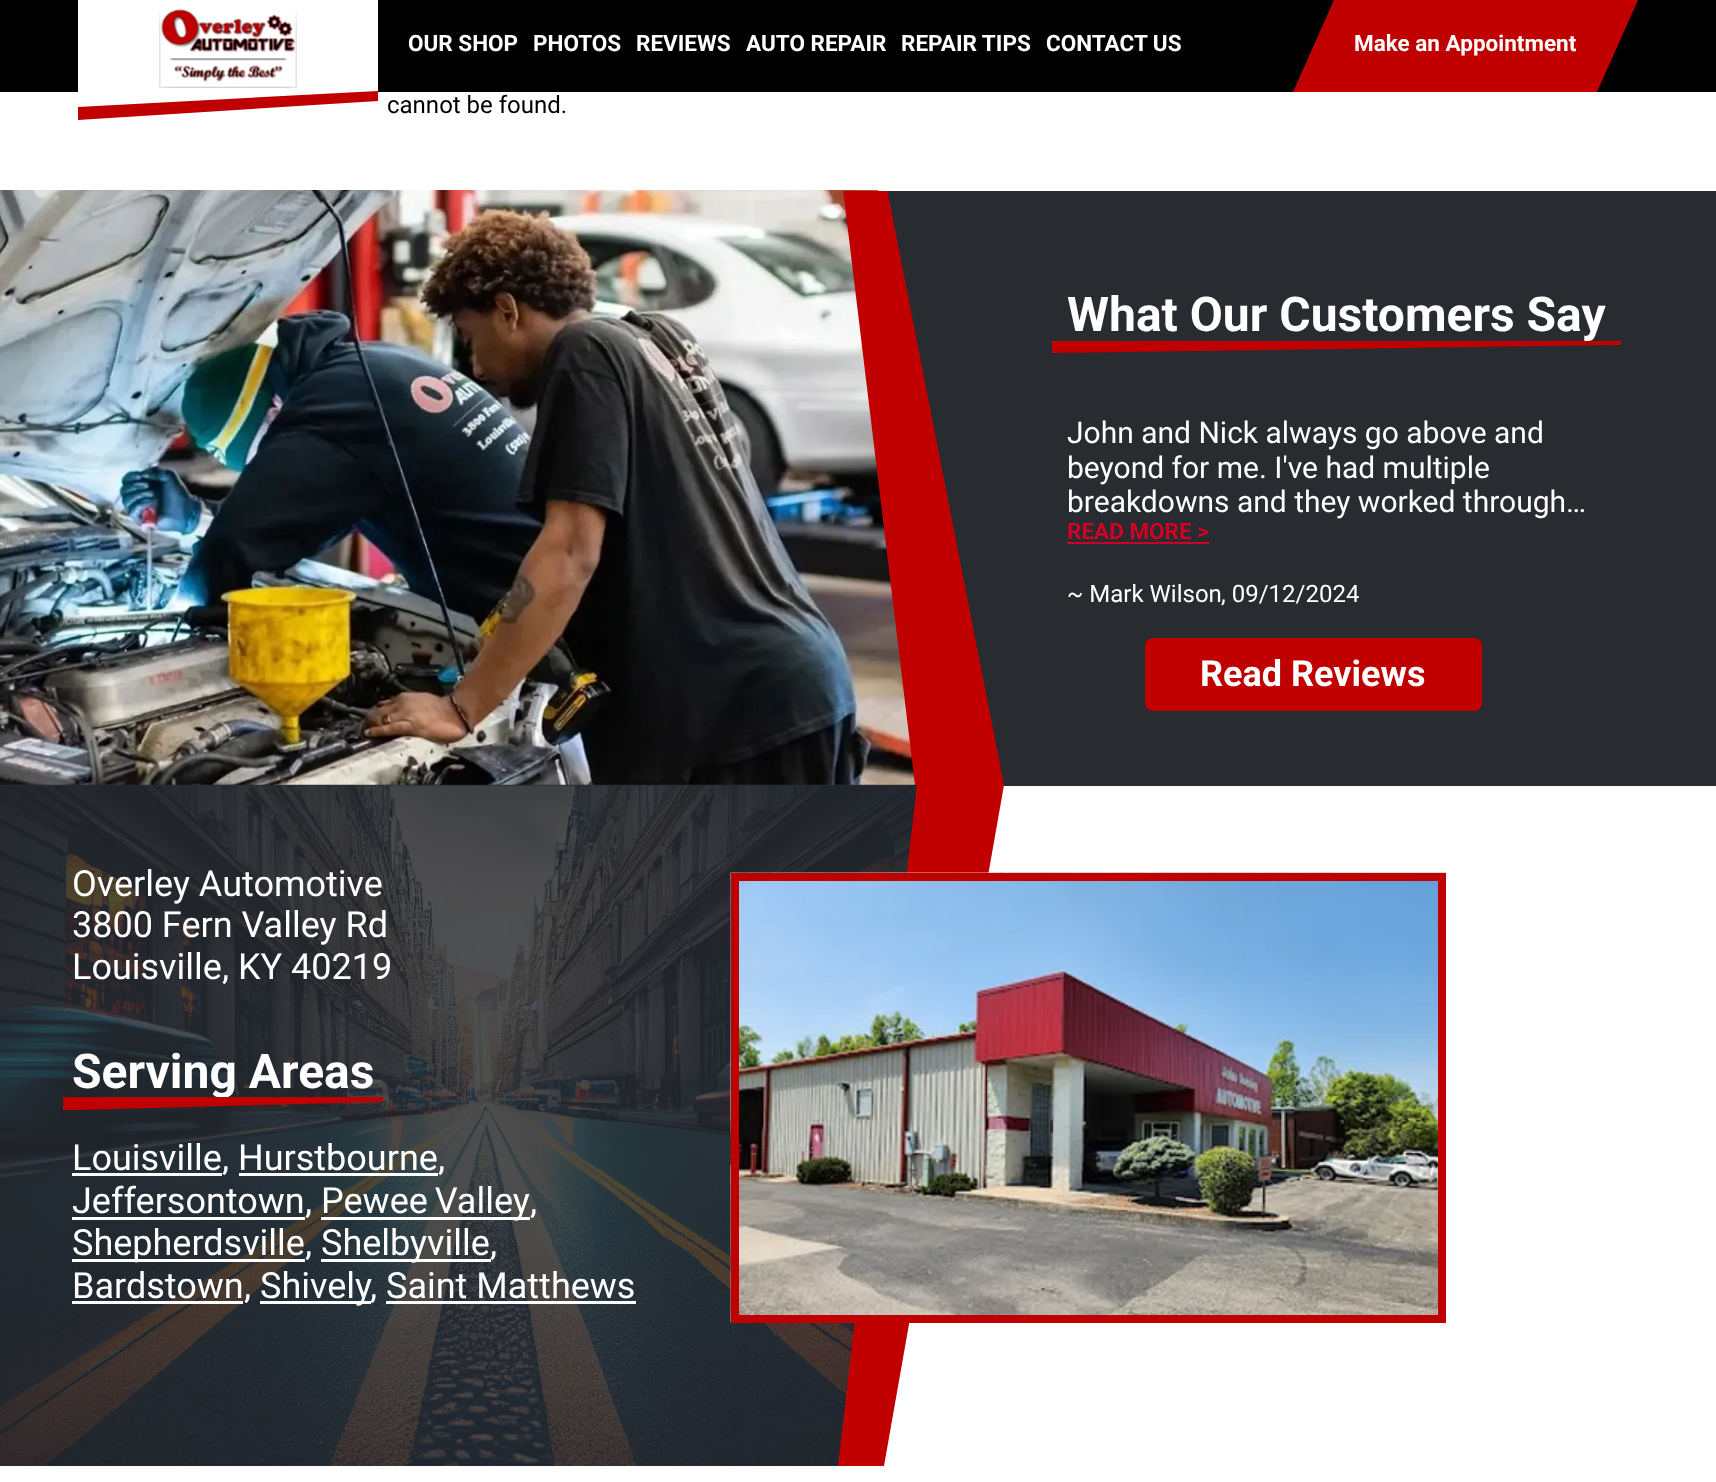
<svg xmlns="http://www.w3.org/2000/svg" width="1716" height="1482">
<defs>
<clipPath id="clip1"><rect y="191" width="1716" height="1276"/></clipPath>
</defs>
<rect width="100%" height="100%" fill="#fff"/>
<rect width="1716" height="92" fill="#000"/>
<path d="M78 15v105l300-19v-86z" fill="#c00000"/>
<path d="M78 0v107l300-16v-91z" fill="#fff"/>
<image x="159" y="9" width="138" height="79" href="media/1.png"/>
<text x="408" y="51" style="font-family:Roboto;font-size:22.5px;font-weight:bold;fill:#fff">OUR SHOP</text>
<text x="533" y="51" style="font-family:Roboto;font-size:22.5px;font-weight:bold;fill:#fff">PHOTOS</text>
<text x="636" y="51" style="font-family:Roboto;font-size:22.5px;font-weight:bold;fill:#fff">REVIEWS</text>
<text x="746" y="51" style="font-family:Roboto;font-size:22.5px;font-weight:bold;fill:#fff">AUTO REPAIR</text>
<text x="901" y="51" style="font-family:Roboto;font-size:22.5px;font-weight:bold;fill:#fff">REPAIR TIPS</text>
<text x="1046" y="51" style="font-family:Roboto;font-size:22.5px;font-weight:bold;fill:#fff">CONTACT US</text>
<path d="M1334 0l-41 92h304l41-92z" fill="#c00000"/>
<text x="1354" y="51" style="font-family:Roboto;font-size:22.5px;font-weight:bold;fill:#fff">Make an Appointment</text>
<text x="387" y="113" style="font-family:Roboto;font-size:24px;fill:#000">cannot be found.</text>
<rect y="191" width="1716" height="595" fill="#282c31"/>
<image x="0" y="190" width="915" height="595" href="media/2.png"/>
<g clip-path="url(#clip1)">
<path d="M1004 785h-89l-72-596h44z" fill="#c00000"/>
</g>
<text x="1067" y="331" style="font-family:Roboto;font-size:48px;font-weight:bold;fill:#fff">What Our Customers Say</text>
<path d="M1052 341h569v4l-569 8z" fill="#c00000"/>
<text x="1067" y="443" style="font-family:Roboto;font-size:30px;fill:#fff">John and Nick always go above and</text>
<text x="1067" y="478" style="font-family:Roboto;font-size:30px;fill:#fff">beyond for me. I've had multiple</text>
<text x="1067" y="512" style="font-family:Roboto;font-size:30px;fill:#fff">breakdowns and they worked through…</text>
<text x="1067" y="539" style="font-family:Roboto;font-size:22.5px;font-weight:bold;fill:#cf0025">READ MORE &gt;</text>
<rect x="1067" y="542" width="142" height="2" fill="#cf0025"/>
<text x="1067" y="602" style="font-family:Roboto;font-size:24px;fill:#fff">~ Mark Wilson</text>
<text x="1221" y="602" style="font-family:Roboto;font-size:24px;fill:#fff">, 09/12/2024</text>
<rect x="1145" y="638" width="337" height="73" rx="8" fill="#c00000"/>
<text x="1200" y="686" style="font-family:Roboto;font-size:36px;font-weight:bold;fill:#fff">Read Reviews</text>
<path d="M-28 786h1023l-113 680h-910z" fill="#282c31"/>
<image x="0" y="785" width="917" height="681" href="media/3.png"/>
<path d="M-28 786h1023l-113 680h-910z" fill="#282c3166"/>
<text x="72" y="896" style="font-family:Roboto;font-size:36px;fill:#fff">Overley Automotive</text>
<text x="72" y="937" style="font-family:Roboto;font-size:36px;fill:#fff">3800 Fern Valley Rd</text>
<text x="72" y="979" style="font-family:Roboto;font-size:36px;fill:#fff">Louisville, KY 40219</text>
<text x="72" y="1088" style="font-family:Roboto;font-size:48px;font-weight:bold;fill:#fff">Serving Areas</text>
<path d="M63 1097h320v5l-306 8h-14z" fill="#c00000"/>
<text x="72" y="1170" style="font-family:Roboto;font-size:36px;fill:#fff">Louisville</text>
<text x="222" y="1170" style="font-family:Roboto;font-size:36px;fill:#fff">, Hurstbourne</text>
<rect x="72" y="1173" width="150" height="3" fill="#fff"/>
<text x="438" y="1170" style="font-family:Roboto;font-size:36px;fill:#fff">,</text>
<rect x="239" y="1173" width="199" height="3" fill="#fff"/>
<text x="72" y="1213" style="font-family:Roboto;font-size:36px;fill:#fff">Jeffersontown</text>
<text x="305" y="1213" style="font-family:Roboto;font-size:36px;fill:#fff">,</text>
<rect x="72" y="1217" width="233" height="3" fill="#fff"/>
<rect x="321" y="1217" width="209" height="3" fill="#fff"/>
<text x="321" y="1213" word-spacing="-2" style="font-family:Roboto;font-size:36px;fill:#fff">Pewee Valley</text>
<text x="530" y="1213" style="font-family:Roboto;font-size:36px;fill:#fff">,</text>
<rect x="72" y="1259" width="233" height="3" fill="#fff"/>
<text x="72" y="1255" style="font-family:Roboto;font-size:36px;fill:#fff">Shepherdsville</text>
<text x="305" y="1255" style="font-family:Roboto;font-size:36px;fill:#fff">,</text>
<rect x="321" y="1259" width="170" height="3" fill="#fff"/>
<text x="321" y="1255" style="font-family:Roboto;font-size:36px;fill:#fff">Shelbyville</text>
<text x="490" y="1255" style="font-family:Roboto;font-size:36px;fill:#fff">,</text>
<text x="72" y="1298" style="font-family:Roboto;font-size:36px;fill:#fff">Bardstown</text>
<text x="244" y="1298" style="font-family:Roboto;font-size:36px;fill:#fff">,</text>
<rect x="72" y="1301" width="171" height="3" fill="#fff"/>
<rect x="260" y="1301" width="111" height="3" fill="#fff"/>
<text x="370" y="1298" style="font-family:Roboto;font-size:36px;fill:#fff">, Saint Matthews</text>
<text x="260" y="1298" style="font-family:Roboto;font-size:36px;fill:#fff">Shively</text>
<rect x="386" y="1301" width="250" height="3" fill="#fff"/>
<path d="M1004 785l-120 681h-46l79-681z" fill="#c00000"/>
<image x="730" y="872" width="716" height="451" href="media/4.png"/>
<rect x="735" y="877" width="707" height="442" fill="none" stroke="#c00000" stroke-width="8"/>
</svg>
